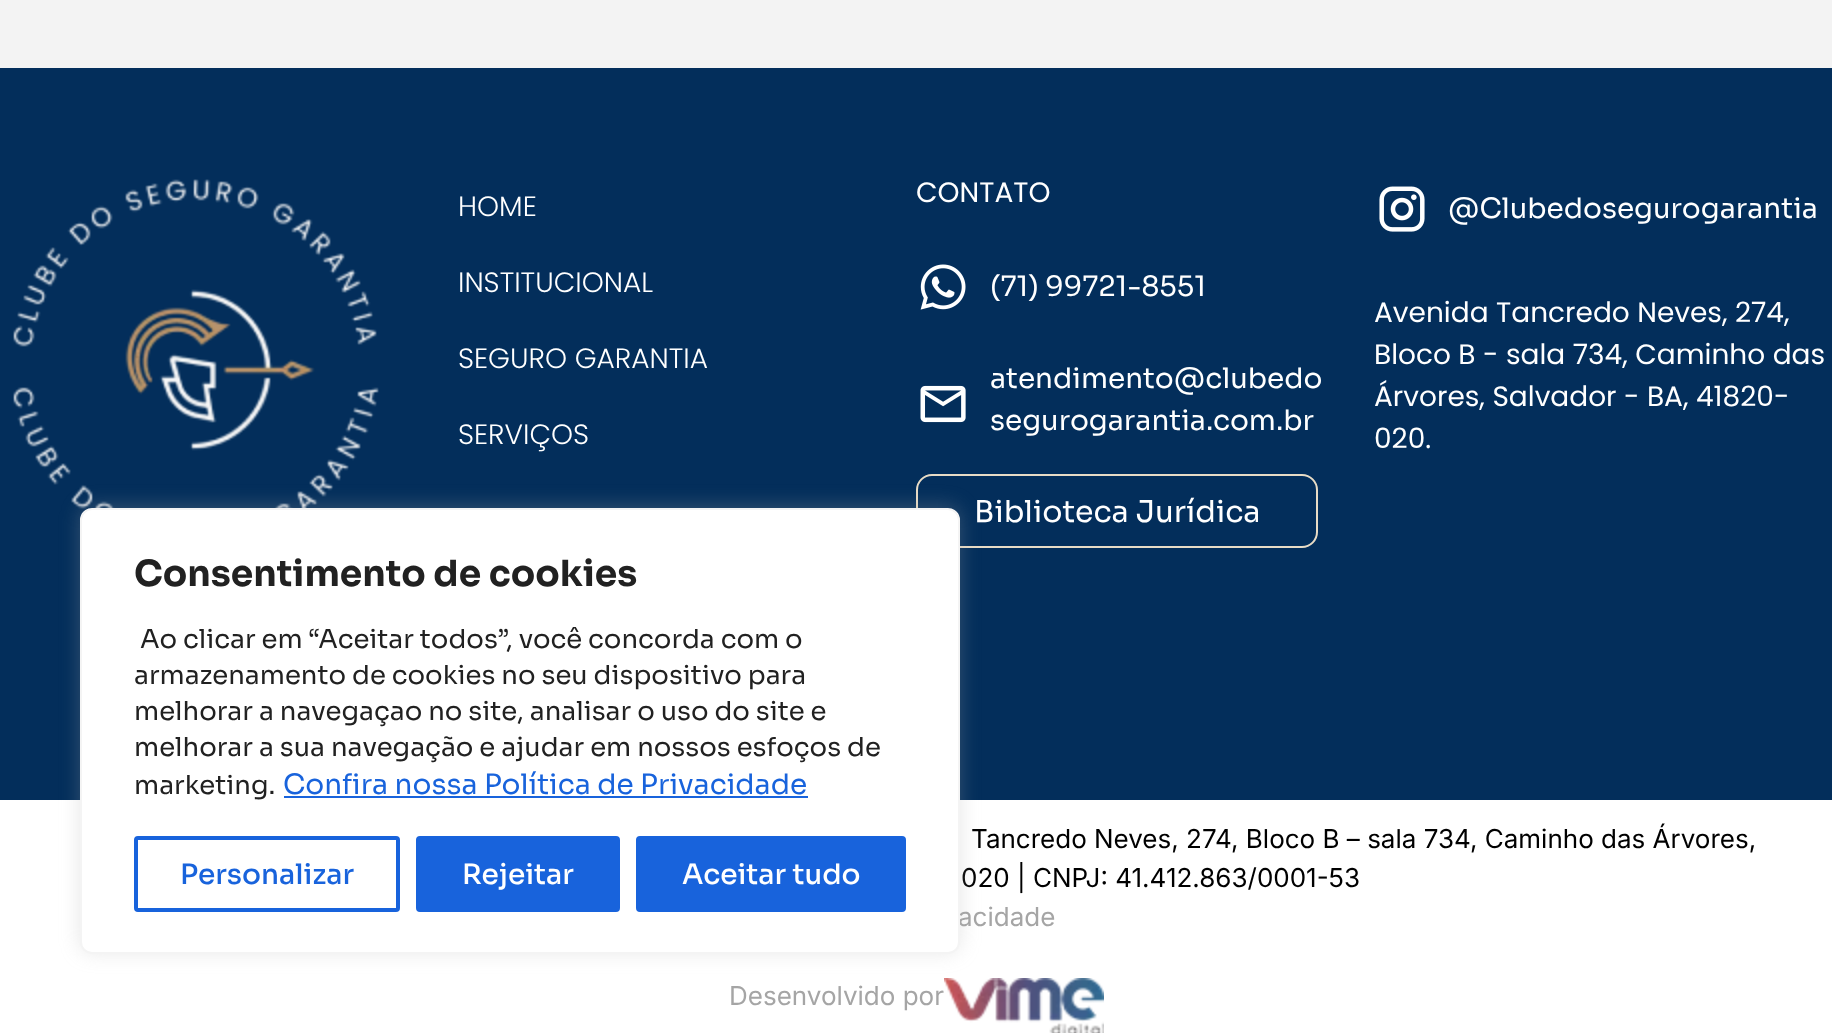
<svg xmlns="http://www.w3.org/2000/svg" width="1832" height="1033">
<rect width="100%" height="100%" fill="#f3f3f3"/>
<rect y="68" width="1832" height="732" fill="#032e5b"/>
<image x="13" y="179" width="366" height="330" href="media/1.png"/>
<text x="458" y="216" style="font-family:Poppins;font-size:28px;font-weight:300;fill:#fff">HOME</text>
<text x="458" y="292" style="font-family:Poppins;font-size:28px;font-weight:300;fill:#fff">INSTITUCIONAL</text>
<text x="458" y="368" style="font-family:Poppins;font-size:28px;font-weight:300;fill:#fff">SEGURO GARANTIA</text>
<text x="458" y="444" style="font-family:Poppins;font-size:28px;font-weight:300;fill:#fff">SERVIÇOS</text>
<text x="916" y="202" style="font-family:Poppins;font-size:28px;fill:#fff">CONTATO</text>
<image x="920" y="264" width="46" height="46" href="media/2.png"/>
<text x="990" y="296" style="font-family:Sora;font-size:28px;fill:#fff">(71) 99721-8551</text>
<image x="920" y="385" width="46" height="38" href="media/3.png"/>
<text x="990" y="388" style="font-family:Sora;font-size:28px;fill:#fff">atendimento@clubedo</text>
<text x="990" y="430" style="font-family:Sora;font-size:28px;fill:#fff">segurogarantia.com.br</text>
<rect x="917" y="475" width="400" height="72" rx="15" fill="none" stroke="#e8dcc6" stroke-width="2"/>
<text x="974" y="522" style="font-family:Sora;font-size:30px;fill:#fff">Biblioteca Jurídica</text>
<image x="1379" y="186" width="46" height="46" href="media/4.png"/>
<text x="1448" y="218" style="font-family:Sora;font-size:28px;fill:#fff">@Clubedosegurogarantia</text>
<text x="1374" y="322" style="font-family:Poppins;font-size:28px;fill:#fff">Avenida Tancredo Neves, 274,</text>
<text x="1374" y="364" style="font-family:Poppins;font-size:28px;fill:#fff">Bloco B - sala 734, Caminho das</text>
<text x="1374" y="406" style="font-family:Poppins;font-size:28px;fill:#fff">Árvores, Salvador - BA, 41820-</text>
<text x="1374" y="448" style="font-family:Poppins;font-size:28px;fill:#fff">020.</text>
<rect y="800" width="1832" height="233" fill="#fff"/>
<text x="971" y="848" style="font-family:Inter;font-size:26px;fill:#000">Tancredo Neves, 274, Bloco B – sala 734, Caminho das Árvores,</text>
<text x="961" y="887" style="font-family:Inter;font-size:26px;fill:#000">020 | CNPJ: 41.412.863/0001-53</text>
<text x="958" y="926" style="font-family:Inter;font-size:26px;fill:#a5a5a5">acidade</text>
<text x="729" y="1005" style="font-family:Inter;font-size:26px;fill:#a5a5a5">Desenvolvido por</text>
<image x="944" y="978" width="160" height="55" href="media/5.png"/>
<rect x="80" y="506" width="880" height="446" rx="12" fill="#acabab4d" filter="blur(10px)"/>
<rect x="81" y="509" width="878" height="444" rx="11" fill="#fff" stroke="#f4f4f4" stroke-width="2"/>
<text x="134" y="586" style="font-family:Sora;font-size:36px;font-weight:bold;fill:#212121">Consentimento de cookies</text>
<text x="140" y="648" style="font-family:Sora;font-size:26px;fill:#212121">Ao clicar em “Aceitar todos”, você concorda com o</text>
<text x="134" y="684" style="font-family:Sora;font-size:26px;fill:#212121">armazenamento de cookies no seu dispositivo para</text>
<text x="134" y="720" style="font-family:Sora;font-size:26px;fill:#212121">melhorar a navegaçao no site, analisar o uso do site e</text>
<text x="134" y="756" style="font-family:Sora;font-size:26px;fill:#212121">melhorar a sua navegação e ajudar em nossos esfoços de</text>
<text x="134" y="794" style="font-family:Sora;font-size:26px;fill:#212121">marketing.</text>
<text x="283" y="794" style="font-family:Sora;font-size:28px;fill:#1863dc">Confira nossa Política de Privacidade</text>
<rect x="284" y="796" width="524" height="2" fill="#1863dc"/>
<rect x="136" y="838" width="262" height="72" rx="2" fill="none" stroke="#1863dc" stroke-width="4"/>
<text x="180" y="884" style="font-family:Sora;font-size:28px;font-weight:500;fill:#1863dc">Personalizar</text>
<rect x="418" y="838" width="200" height="72" rx="2" fill="#1863dc" stroke="#1863dc" stroke-width="4"/>
<text x="462" y="884" style="font-family:Sora;font-size:28px;font-weight:500;fill:#fff">Rejeitar</text>
<rect x="638" y="838" width="266" height="72" rx="2" fill="#1863dc" stroke="#1863dc" stroke-width="4"/>
<text x="682" y="884" style="font-family:Sora;font-size:28px;font-weight:500;fill:#fff">Aceitar tudo</text>
</svg>
